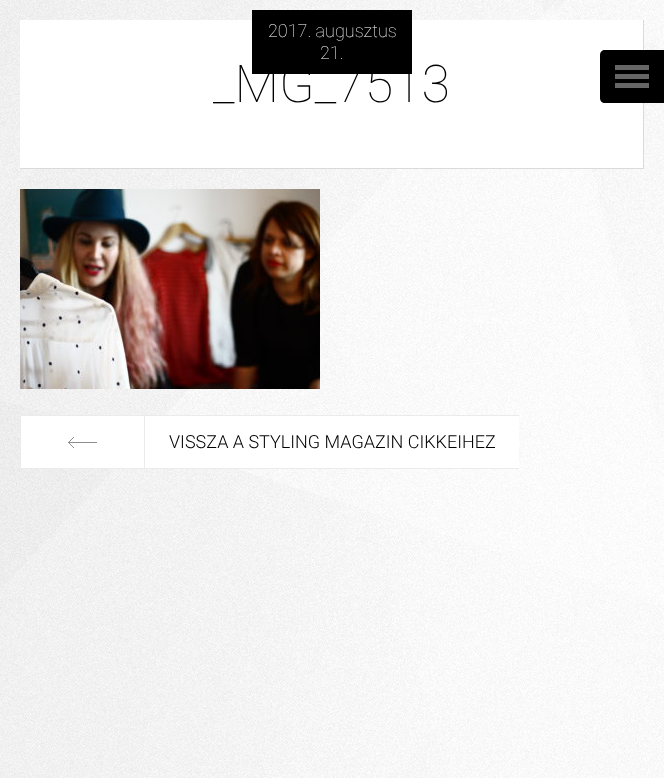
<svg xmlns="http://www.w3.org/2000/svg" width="664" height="778">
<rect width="100%" height="100%" fill="#fff"/>
<image x="0" y="0" width="664" height="778" href="media/1.png"/>
<rect x="20" y="20" width="623" height="148" fill="#fff"/>
<rect x="643" y="20" width="1" height="149" fill="#dadada"/>
<rect x="20" y="168" width="624" height="1" fill="#dadada"/>
<rect x="252" y="10" width="160" height="64" fill="#000"/>
<text x="268" y="37" style="font-family:Roboto;font-size:18px;font-weight:100;fill:#fff">2017. augusztus</text>
<text x="320" y="59" style="font-family:Roboto;font-size:18px;font-weight:100;fill:#fff">21.</text>
<text x="213" y="102" style="font-family:Roboto;font-size:52px;font-weight:100;fill:#000">_MG_7513</text>
<image x="20" y="189" width="300" height="200" href="media/2.png"/>
<rect x="21" y="416" width="123" height="52" fill="#fff"/>
<image x="68" y="437" width="29" height="11" href="media/3.png"/>
<rect x="20.5" y="415.5" width="124" height="53" fill="none" stroke="#ebebeb"/>
<rect x="145" y="416" width="374" height="52" fill="#fff"/>
<rect x="145" y="415" width="374" height="1" fill="#ebebeb"/>
<rect x="145" y="468" width="374" height="1" fill="#ebebeb"/>
<text x="169" y="448" style="font-family:Roboto;font-size:18px;font-weight:300;fill:#000">VISSZA A STYLING MAGAZIN CIKKEIHEZ</text>
<path d="M605 50h59v53h-59c-3 0-5-2-5-5v-43c0-3 2-5 5-5z" fill="#000"/>
<image x="615" y="65" width="34" height="23" href="media/4.png"/>
</svg>
